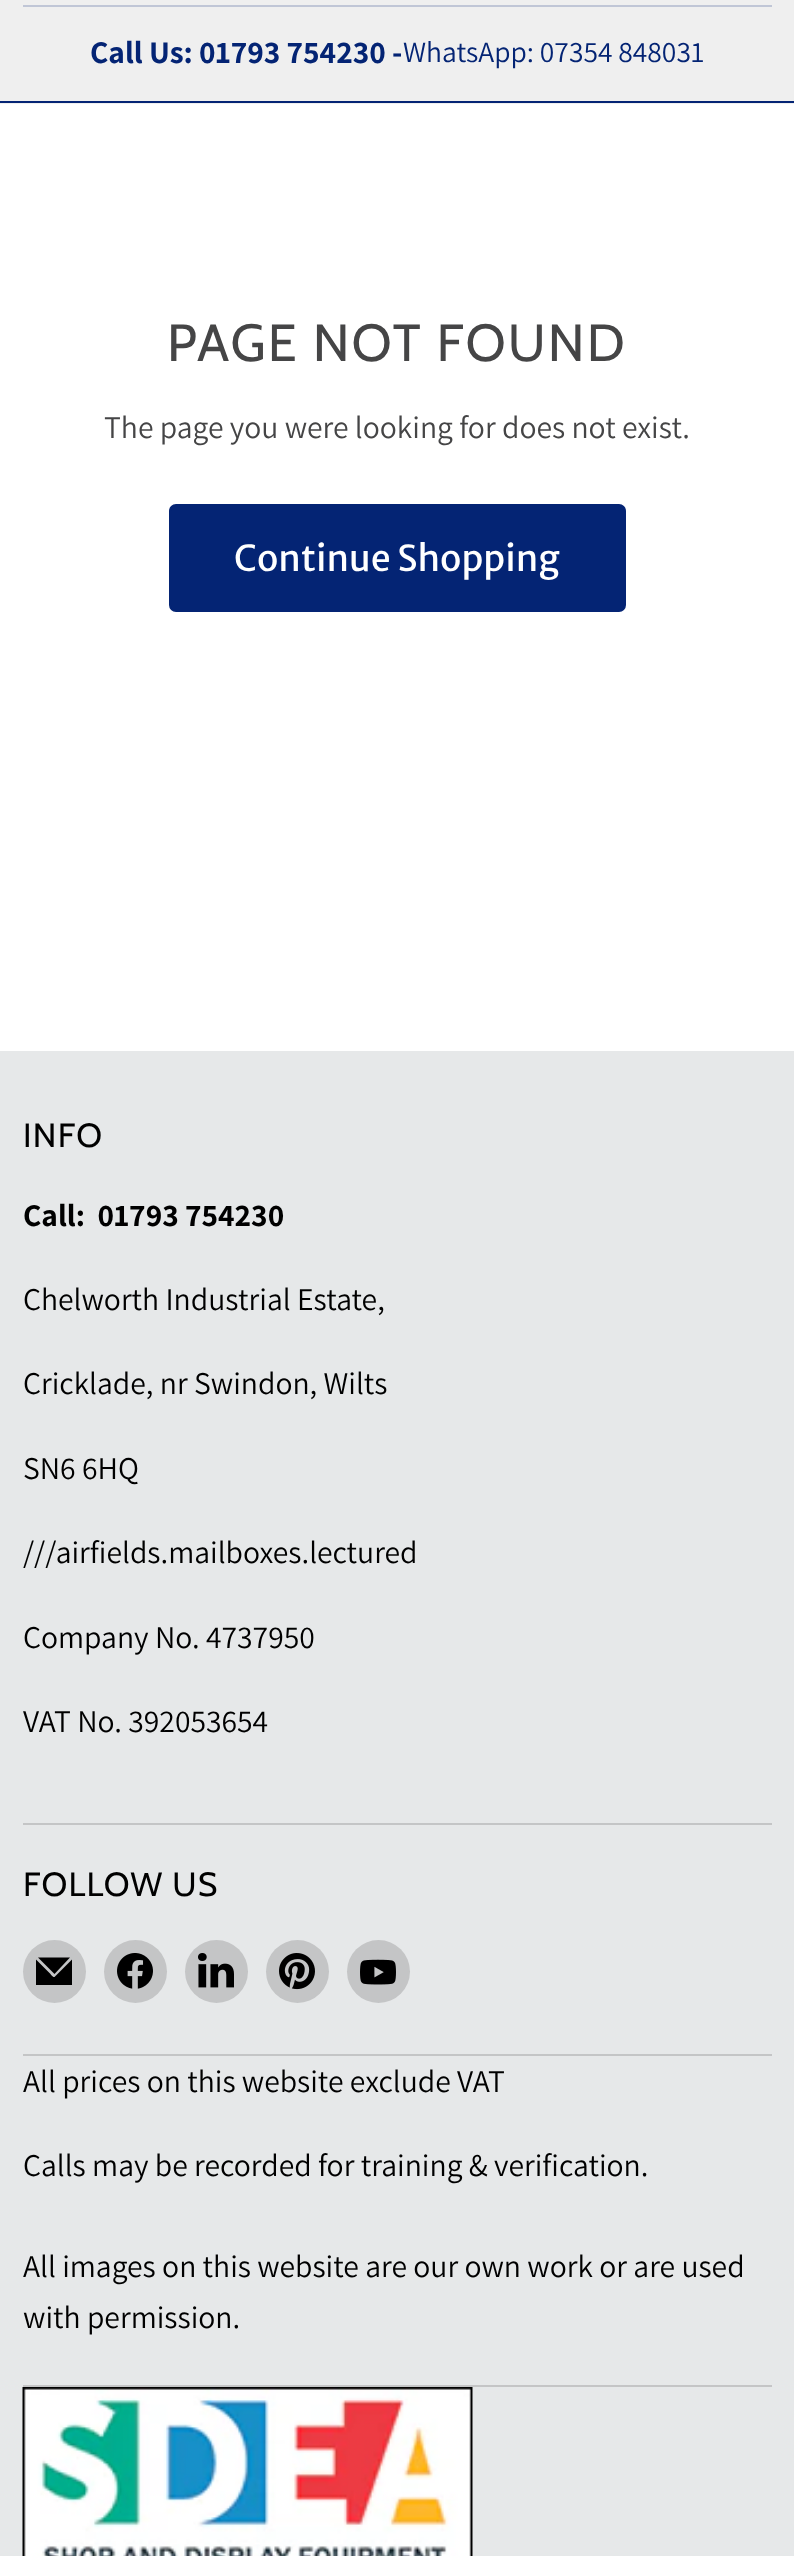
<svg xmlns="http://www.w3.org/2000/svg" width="794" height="2556">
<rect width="100%" height="100%" fill="#fff"/>
<rect width="794" height="104" fill="#efefef"/>
<rect y="101" width="794" height="2" fill="#042474"/>
<rect x="23" y="5" width="749" height="2" fill="#c0c6d6"/>
<text x="90" y="63" style="font-family:Assistant;font-size:31.6px;font-weight:bold;fill:#042474">Call Us: 01793 754230 -</text>
<text x="403" y="62" style="font-family:Assistant;font-size:29.5px;fill:#042474">WhatsApp: 07354 848031</text>
<text x="167" y="361" style="font-family:Cabin;font-size:52.25px;letter-spacing:2.1px;fill:#454546">PAGE NOT FOUND</text>
<text x="104" y="438" style="font-family:Assistant;font-size:31.6px;fill:#454546">The page you were looking for does not exist.</text>
<rect x="170" y="505" width="455" height="106" rx="6" fill="#042474" stroke="#042474" stroke-width="2"/>
<text x="234" y="571" style="font-family:Merriweather Sans;font-size:35.75px;fill:#fff">Continue Shopping</text>
<rect y="1051" width="794" height="1505" fill="#e6e8e9"/>
<rect x="23" y="1823" width="749" height="2" fill="#c4c5c6"/>
<text x="23" y="1147" style="font-family:Cabin;font-size:33.5px;letter-spacing:1.25px;fill:#000">INFO</text>
<text x="23" y="1226" style="font-family:Assistant;font-size:31.6px;font-weight:bold;fill:#000" xml:space="preserve">Call:  01793 754230</text>
<text x="23" y="1310" style="font-family:Assistant;font-size:31.6px;fill:#000">Chelworth Industrial Estate,</text>
<text x="23" y="1394" style="font-family:Assistant;font-size:31.6px;fill:#000">Cricklade, nr Swindon, Wilts</text>
<text x="23" y="1479" style="font-family:Assistant;font-size:31.6px;fill:#000">SN6 6HQ</text>
<text x="23" y="1563" style="font-family:Assistant;font-size:31.6px;fill:#000">///airfields.mailboxes.lectured</text>
<text x="23" y="1648" style="font-family:Assistant;font-size:31.6px;fill:#000">Company No. 4737950</text>
<text x="23" y="1732" style="font-family:Assistant;font-size:31.6px;fill:#000">VAT No. 392053654</text>
<rect x="23" y="2054" width="749" height="2" fill="#c4c5c6"/>
<text x="23" y="1896" style="font-family:Cabin;font-size:33.5px;letter-spacing:1.25px;fill:#000">FOLLOW US</text>
<circle cx="54.5" cy="1971.5" r="31.5" fill="#c4c5c6"/>
<path d="M55 1976.5c-1.5 2-4.5-2.5-4.5-2.5l-14.5-14.5v25.5h36v-25.5z" fill="#000"/>
<path d="M70 1957.5h-32l16.5 16.5z" fill="#000"/>
<circle cx="135.5" cy="1971.5" r="31.5" fill="#c4c5c6"/>
<image x="117" y="1953" width="36" height="36" href="media/1.png"/>
<circle cx="216.5" cy="1971.5" r="31.5" fill="#c4c5c6"/>
<image x="198" y="1953" width="36" height="35" href="media/2.png"/>
<circle cx="297.5" cy="1971.5" r="31.5" fill="#c4c5c6"/>
<image x="279" y="1953" width="36" height="37" href="media/3.png"/>
<circle cx="378.5" cy="1971.5" r="31.5" fill="#c4c5c6"/>
<image x="360" y="1959" width="36" height="26" href="media/4.png"/>
<rect x="23" y="2385" width="749" height="2" fill="#c4c5c6"/>
<text x="23" y="2092" style="font-family:Assistant;font-size:31.6px;fill:#000">All prices on this website exclude VAT</text>
<text x="23" y="2176" style="font-family:Assistant;font-size:31.6px;fill:#000">Calls may be recorded for training &amp; verification.</text>
<text x="23" y="2277" style="font-family:Assistant;font-size:31.6px;fill:#000">All images on this website are our own work or are used</text>
<text x="23" y="2328" style="font-family:Assistant;font-size:31.6px;fill:#000">with permission.</text>
<image x="22" y="2387" width="451" height="169" href="media/5.png"/>
</svg>
